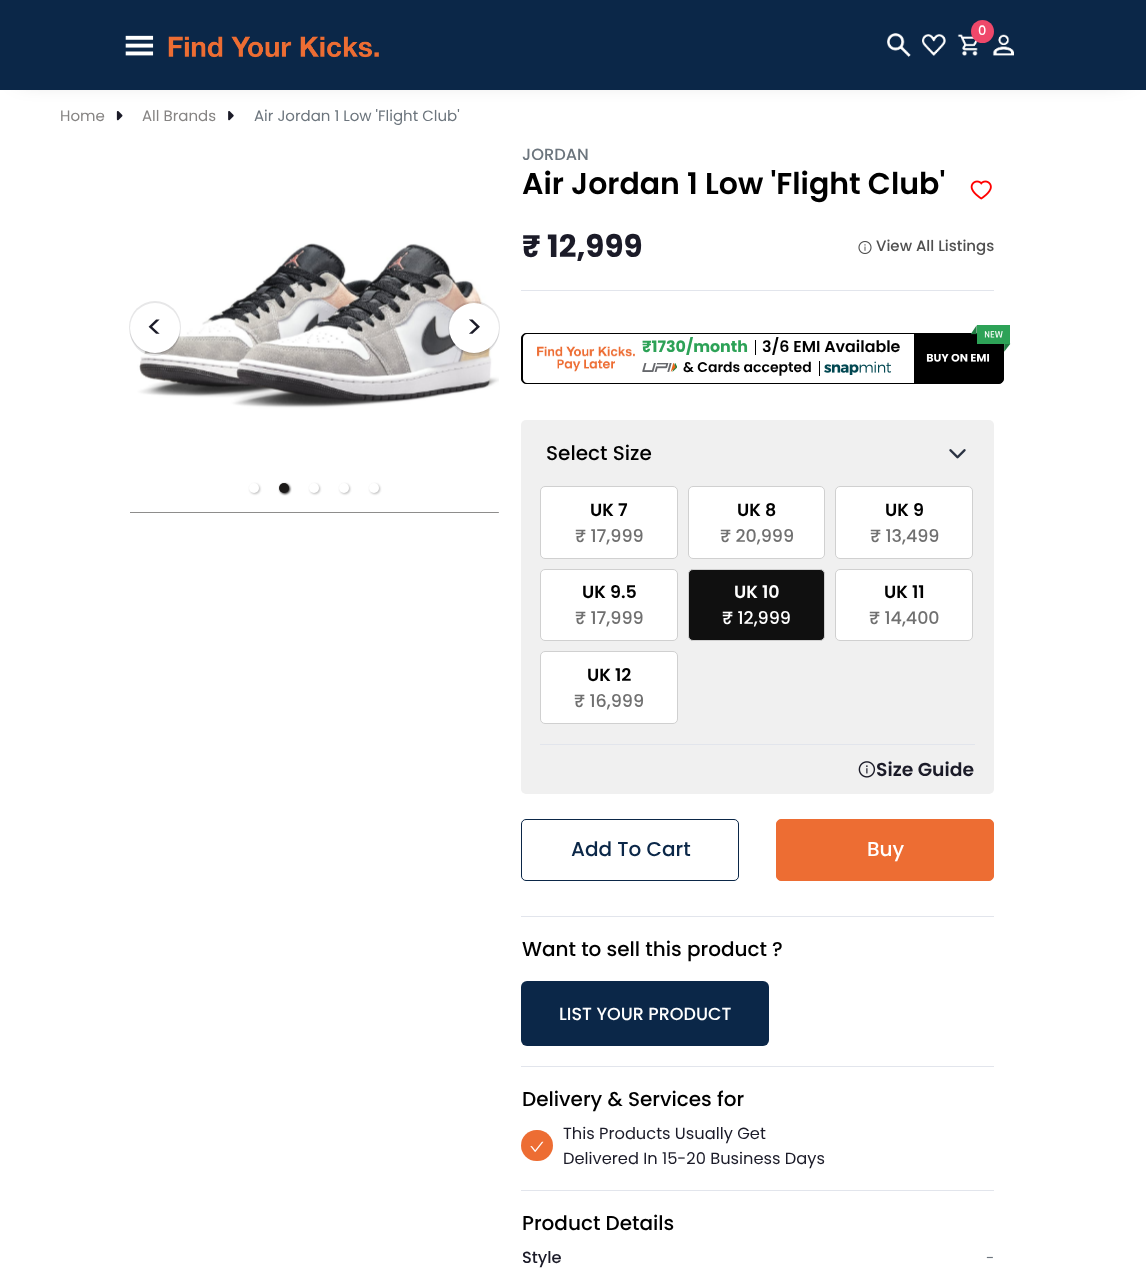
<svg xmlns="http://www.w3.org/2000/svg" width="1146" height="1274">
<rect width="100%" height="100%" fill="#fff"/>
<image x="116" y="111" width="7" height="10" href="media/7.png"/>
<image x="228" y="111" width="6" height="10" href="media/8.png"/>
<rect x="21" y="28" width="1104" height="47" fill="#00000057" filter="blur(12.5px)"/>
<rect width="1146" height="90" fill="#0b2748"/>
<image x="957" y="34" width="21" height="22" href="media/1.png"/>
<image x="992" y="34" width="22" height="22" href="media/4.png"/>
<circle cx="982.5" cy="31.5" r="11.5" fill="#ef486a"/>
<text x="978" y="35" style="font-family:Poppins;font-size:13px;font-weight:500;fill:#fff">0</text>
<image x="887" y="33" width="24" height="24" href="media/2.png"/>
<image x="922" y="34" width="24" height="22" href="media/3.png"/>
<image x="125" y="35" width="29" height="21" href="media/5.png"/>
<image x="168" y="36" width="211" height="22" href="media/6.png"/>
<text x="60" y="121" style="font-family:Poppins;font-size:15px;fill:#868483">Home</text>
<text x="142" y="121" style="font-family:Poppins;font-size:15px;fill:#868483">All Brands</text>
<text x="254" y="121" style="font-family:Poppins;font-size:15px;fill:#6c757d">Air Jordan 1 Low 'Flight Club'</text>
<rect x="130" y="512" width="368" height="1" fill="#1c1a19"/>
<image x="130" y="143" width="369" height="370" href="media/9.png"/>
<rect x="498" y="512" width="1" height="1" fill="#a09f9f"/>
<rect x="130" y="306" width="50" height="50" rx="25" fill="#14171c1a" filter="blur(0.5px)"/>
<rect x="129" y="301" width="52" height="53" rx="26" fill="#14171c1a" filter="blur(0.5px)"/>
<circle cx="155" cy="328" r="25" fill="#fff"/>
<text x="146" y="338" style="font-family:Poppins;font-size:31px;fill:#1b1b28">&lt;</text>
<rect x="449" y="306" width="50" height="50" rx="25" fill="#14171c1a" filter="blur(0.5px)"/>
<rect x="448" y="301" width="52" height="53" rx="26" fill="#14171c1a" filter="blur(0.5px)"/>
<circle cx="474" cy="328" r="25" fill="#fff"/>
<text x="466" y="338" style="font-family:Poppins;font-size:31px;fill:#1b1b28">&gt;</text>
<rect x="250" y="484" width="10" height="10" rx="5" fill="#b3b3b3e6" filter="blur(1px)"/>
<circle cx="254" cy="488" r="5" fill="#fff"/>
<rect x="280" y="484" width="10" height="10" rx="5" fill="#000000e6" filter="blur(1px)"/>
<circle cx="284" cy="488" r="5" fill="#1c1a19"/>
<rect x="310" y="484" width="10" height="10" rx="5" fill="#b3b3b3e6" filter="blur(1px)"/>
<circle cx="314" cy="488" r="5" fill="#fff"/>
<rect x="340" y="484" width="10" height="10" rx="5" fill="#b3b3b3e6" filter="blur(1px)"/>
<circle cx="344" cy="488" r="5" fill="#fff"/>
<rect x="370" y="484" width="10" height="10" rx="5" fill="#b3b3b3e6" filter="blur(1px)"/>
<circle cx="374" cy="488" r="5" fill="#fff"/>
<text x="522" y="160" style="font-family:Poppins;font-size:16.25px;font-weight:500;fill:#6c757d">JORDAN</text>
<text x="522" y="194" style="font-family:Poppins;font-size:30px;font-weight:600;fill:#000">Air Jordan 1 Low 'Flight Club'</text>
<image x="970" y="180" width="22" height="20" href="media/10.png"/>
<text x="522" y="257" style="font-family:Poppins;font-size:31px;font-weight:bold;fill:#1b1b28">₹ 12,999</text>
<image x="858" y="241" width="14" height="13" href="media/11.png"/>
<text x="876" y="251" style="font-family:Poppins;font-size:15px;font-weight:500;fill:#505050">View All Listings</text>
<rect x="521" y="290" width="473" height="1" fill="#e2e5ec"/>
<rect x="521.5" y="333.5" width="482" height="50" rx="4.5" fill="#000" stroke="#000"/>
<path d="M527 334h387v49h-387c-2 0-4-2-4-4v-41c0-2 2-4 4-4z" fill="#fff"/>
<image x="537" y="346" width="98" height="26" href="media/12.png"/>
<text x="642" y="352" style="font-family:Poppins;font-size:15.9px;font-weight:bold;fill:#2da257">₹1730/month</text>
<rect x="755" y="340" width="1" height="15" fill="#000"/>
<text x="762" y="352" style="font-family:Poppins;font-size:15.9px;font-weight:600;fill:#000">3/6 EMI Available</text>
<image x="642" y="363" width="35" height="9" href="media/13.png"/>
<text x="683" y="372" style="font-family:Poppins;font-size:14px;font-weight:600;fill:#000">&amp; Cards accepted</text>
<rect x="819" y="361" width="1" height="15" fill="#000"/>
<image x="824" y="361" width="67" height="14" href="media/14.png"/>
<image x="971" y="325" width="40" height="27" href="media/15.png"/>
<image x="926" y="354" width="64" height="8" href="media/16.png"/>
<rect x="521" y="420" width="473" height="374" rx="5" fill="#f0f0f0"/>
<text x="546" y="460" style="font-family:Poppins;font-size:20px;font-weight:500;fill:#000">Select Size</text>
<image x="949" y="449" width="17" height="10" href="media/17.png"/>
<rect x="540.5" y="486.5" width="137" height="72" rx="4.5" fill="#fff" stroke="#d0d0d0"/>
<text x="590" y="516" style="font-family:Poppins;font-size:17.5px;font-weight:600;fill:#000">UK 7</text>
<text x="575" y="542" style="font-family:Poppins;font-size:17.5px;font-weight:500;fill:#707070">₹ 17,999</text>
<rect x="688.5" y="486.5" width="136" height="72" rx="4.5" fill="#fff" stroke="#d0d0d0"/>
<text x="737" y="516" style="font-family:Poppins;font-size:17.5px;font-weight:600;fill:#000">UK 8</text>
<text x="720" y="542" style="font-family:Poppins;font-size:17.5px;font-weight:500;fill:#707070">₹ 20,999</text>
<rect x="835.5" y="486.5" width="137" height="72" rx="4.5" fill="#fff" stroke="#d0d0d0"/>
<text x="885" y="516" style="font-family:Poppins;font-size:17.5px;font-weight:600;fill:#000">UK 9</text>
<text x="870" y="542" style="font-family:Poppins;font-size:17.5px;font-weight:500;fill:#707070">₹ 13,499</text>
<rect x="540.5" y="569.5" width="137" height="71" rx="4.5" fill="#fff" stroke="#d0d0d0"/>
<text x="582" y="598" style="font-family:Poppins;font-size:17.5px;font-weight:600;fill:#000">UK 9.5</text>
<text x="575" y="624" style="font-family:Poppins;font-size:17.5px;font-weight:500;fill:#707070">₹ 17,999</text>
<rect x="688.5" y="569.5" width="136" height="71" rx="4.5" fill="#101010" stroke="#d0d0d0"/>
<text x="734" y="598" style="font-family:Poppins;font-size:17.5px;font-weight:600;fill:#fff">UK 10</text>
<text x="722" y="624" style="font-family:Poppins;font-size:17.5px;font-weight:500;fill:#fff">₹ 12,999</text>
<rect x="835.5" y="569.5" width="137" height="71" rx="4.5" fill="#fff" stroke="#d0d0d0"/>
<text x="884" y="598" style="font-family:Poppins;font-size:17.5px;font-weight:600;fill:#000">UK 11</text>
<text x="869" y="624" style="font-family:Poppins;font-size:17.5px;font-weight:500;fill:#707070">₹ 14,400</text>
<rect x="540.5" y="651.5" width="137" height="72" rx="4.5" fill="#fff" stroke="#d0d0d0"/>
<text x="587" y="681" style="font-family:Poppins;font-size:17.5px;font-weight:600;fill:#000">UK 12</text>
<text x="574" y="707" style="font-family:Poppins;font-size:17.5px;font-weight:500;fill:#707070">₹ 16,999</text>
<rect x="540" y="744" width="435" height="1" fill="#e2e5ec"/>
<image x="858" y="761" width="18" height="17" href="media/18.png"/>
<text x="876" y="776" style="font-family:Poppins;font-size:18.75px;font-weight:600;fill:#1b1b28">Size Guide</text>
<rect x="521.5" y="819.5" width="217" height="61" rx="4.5" fill="none" stroke="#0b2748"/>
<text x="571" y="856" style="font-family:Poppins;font-size:20px;font-weight:500;fill:#0b2748">Add To Cart</text>
<rect x="776.5" y="819.5" width="217" height="61" rx="4.5" fill="#ed6d33" stroke="#ed6d33"/>
<text x="867" y="856" style="font-family:Poppins;font-size:20px;font-weight:500;fill:#fff">Buy</text>
<rect x="521" y="916" width="473" height="1" fill="#e2e5ec"/>
<text x="522" y="956" style="font-family:Poppins;font-size:20px;font-weight:500;fill:#000">Want to sell this product ?</text>
<rect x="521" y="981" width="248" height="65" rx="6" fill="#0b2748"/>
<text x="559" y="1020" style="font-family:Poppins;font-size:17.5px;font-weight:500;fill:#fff">LIST YOUR PRODUCT</text>
<rect x="521" y="1066" width="473" height="1" fill="#e2e5ec"/>
<text x="522" y="1106" style="font-family:Poppins;font-size:20px;font-weight:500;fill:#000">Delivery &amp; Services for</text>
<rect x="521" y="1130" width="32" height="31" rx="15.5" fill="#ed6d33"/>
<image x="530" y="1141" width="14" height="11" href="media/19.png"/>
<text x="563" y="1139" style="font-family:Poppins;font-size:16.25px;fill:#1b1b28">This Products Usually Get</text>
<text x="563" y="1164" style="font-family:Poppins;font-size:16.25px;fill:#1b1b28">Delivered In 15-20 Business Days</text>
<rect x="521" y="1190" width="473" height="1" fill="#e2e5ec"/>
<text x="522" y="1230" style="font-family:Poppins;font-size:20px;font-weight:500;fill:#000">Product Details</text>
<text x="522" y="1263" style="font-family:Poppins;font-size:16.25px;font-weight:500;fill:#1b1b28">Style</text>
<text x="986" y="1263" style="font-family:Poppins;font-size:15px;fill:#6c757d">-</text>
</svg>
